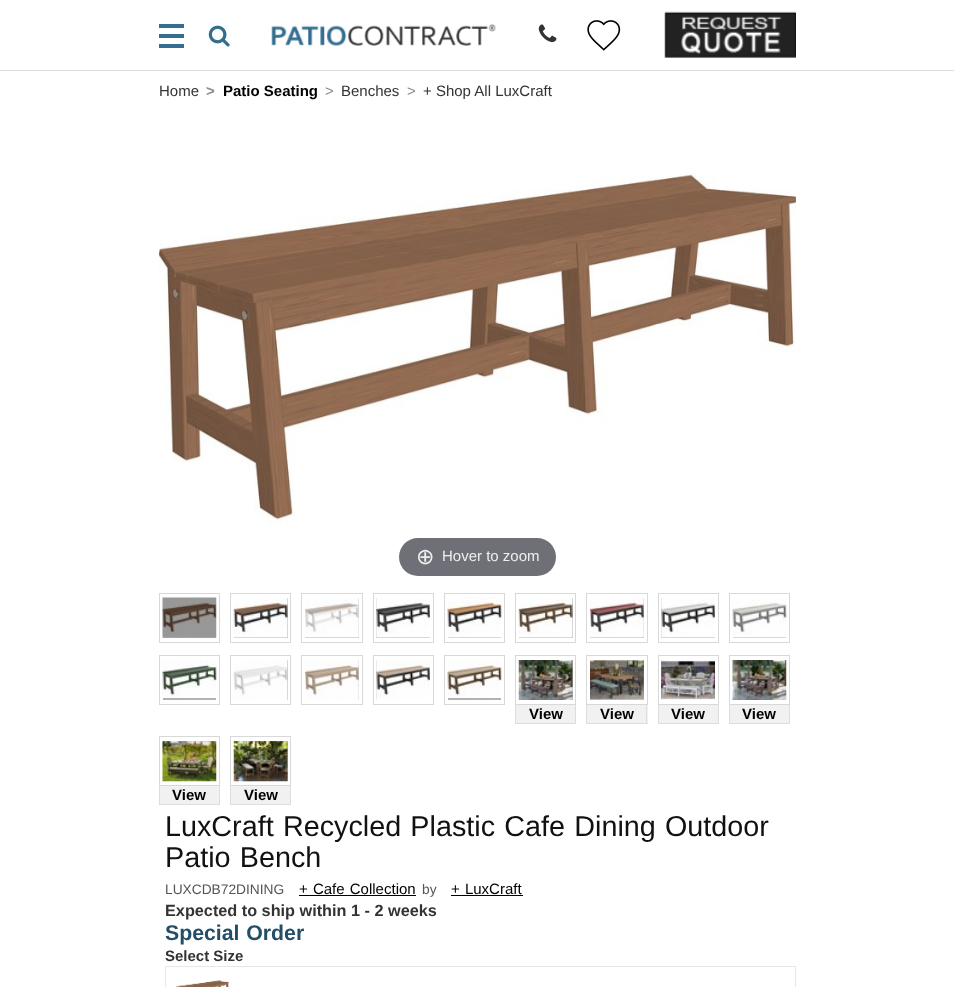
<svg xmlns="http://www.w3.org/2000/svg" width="954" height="987">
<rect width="100%" height="100%" fill="#fff"/>
<rect y="70" width="954" height="1" fill="#ddd"/>
<rect x="159" y="34" width="25" height="4" fill="#336e91"/>
<rect x="159" y="24" width="25" height="4" fill="#336e91"/>
<rect x="159" y="44" width="25" height="4" fill="#336e91"/>
<image x="208" y="25" width="22" height="22" href="media/1.png"/>
<image x="271" y="23" width="225" height="23" href="media/2.png"/>
<image x="538" y="24" width="19" height="19" href="media/3.png"/>
<image x="587" y="20" width="34" height="31" href="media/4.png"/>
<image x="664" y="11" width="132" height="47" href="media/5.png"/>
<text x="159" y="96" style="font-family:Liberation Sans;font-size:15px;fill:#333">Home</text>
<text x="206" y="96" style="font-family:Liberation Sans;font-size:15px;font-weight:bold;fill:#868e96">&gt;</text>
<text x="223" y="96" style="font-family:Liberation Sans;font-size:15px;font-weight:bold;fill:#000">Patio Seating</text>
<text x="325" y="96" style="font-family:Liberation Sans;font-size:15px;fill:#868e96">&gt;</text>
<text x="341" y="96" style="font-family:Liberation Sans;font-size:15px;fill:#333">Benches</text>
<text x="407" y="96" style="font-family:Liberation Sans;font-size:15px;fill:#868e96">&gt;</text>
<text x="423" y="96" style="font-family:Liberation Sans;font-size:15px;fill:#333">+ Shop All LuxCraft</text>
<image x="159" y="174" width="637" height="352" href="media/6.png"/>
<rect x="399" y="538" width="157" height="38" rx="19" fill="#6f7077"/>
<text x="416" y="564" style="font-family:DejaVu Sans;font-size:22px;fill:#eee">⊕</text>
<text x="442" y="561" style="font-family:Liberation Sans;font-size:15px;fill:#eee">Hover to zoom</text>
<rect x="159.5" y="593.5" width="60" height="49" fill="none" stroke="#d8d8d8"/>
<rect x="163" y="598" width="53" height="40" fill="#0000004d" filter="blur(0.5px)"/>
<image x="162" y="597" width="55" height="41" href="media/7.png"/>
<rect x="230.5" y="593.5" width="60" height="49" fill="none" stroke="#d8d8d8"/>
<rect x="234" y="598" width="54" height="40" fill="#0000004d" filter="blur(0.5px)"/>
<image x="233" y="598" width="55" height="40" href="media/8.png"/>
<rect x="301.5" y="593.5" width="61" height="49" fill="none" stroke="#d8d8d8"/>
<rect x="305" y="598" width="54" height="40" fill="#0000004d" filter="blur(0.5px)"/>
<image x="305" y="598" width="54" height="40" href="media/9.png"/>
<rect x="373.5" y="593.5" width="60" height="49" fill="none" stroke="#d8d8d8"/>
<rect x="376" y="598" width="54" height="40" fill="#0000004d" filter="blur(0.5px)"/>
<image x="376" y="598" width="54" height="40" href="media/10.png"/>
<rect x="444.5" y="593.5" width="60" height="49" fill="none" stroke="#d8d8d8"/>
<rect x="448" y="598" width="53" height="40" fill="#0000004d" filter="blur(0.5px)"/>
<image x="447" y="597" width="55" height="41" href="media/11.png"/>
<rect x="515.5" y="593.5" width="60" height="49" fill="none" stroke="#d8d8d8"/>
<rect x="519" y="598" width="54" height="40" fill="#0000004d" filter="blur(0.5px)"/>
<image x="518" y="598" width="55" height="40" href="media/12.png"/>
<rect x="586.5" y="593.5" width="61" height="49" fill="none" stroke="#d8d8d8"/>
<rect x="590" y="598" width="54" height="40" fill="#0000004d" filter="blur(0.5px)"/>
<image x="590" y="598" width="54" height="40" href="media/13.png"/>
<rect x="658.5" y="593.5" width="60" height="49" fill="none" stroke="#d8d8d8"/>
<rect x="661" y="598" width="54" height="40" fill="#0000004d" filter="blur(0.5px)"/>
<image x="661" y="598" width="54" height="40" href="media/14.png"/>
<rect x="729.5" y="593.5" width="60" height="49" fill="none" stroke="#d8d8d8"/>
<rect x="733" y="598" width="53" height="40" fill="#0000004d" filter="blur(0.5px)"/>
<image x="732" y="598" width="55" height="40" href="media/15.png"/>
<rect x="159.5" y="655.5" width="60" height="49" fill="none" stroke="#d8d8d8"/>
<rect x="163" y="660" width="53" height="40" fill="#0000004d" filter="blur(0.5px)"/>
<image x="162" y="660" width="55" height="38" href="media/16.png"/>
<rect x="230.5" y="655.5" width="60" height="49" fill="none" stroke="#d8d8d8"/>
<rect x="234" y="660" width="54" height="40" fill="#0000004d" filter="blur(0.5px)"/>
<image x="233" y="660" width="55" height="40" href="media/17.png"/>
<rect x="301.5" y="655.5" width="61" height="49" fill="none" stroke="#d8d8d8"/>
<rect x="305" y="660" width="54" height="40" fill="#0000004d" filter="blur(0.5px)"/>
<image x="305" y="660" width="54" height="40" href="media/18.png"/>
<rect x="373.5" y="655.5" width="60" height="49" fill="none" stroke="#d8d8d8"/>
<rect x="376" y="660" width="54" height="40" fill="#0000004d" filter="blur(0.5px)"/>
<image x="376" y="660" width="54" height="40" href="media/19.png"/>
<rect x="444.5" y="655.5" width="60" height="49" fill="none" stroke="#d8d8d8"/>
<rect x="448" y="660" width="53" height="40" fill="#0000004d" filter="blur(0.5px)"/>
<image x="447" y="660" width="55" height="38" href="media/20.png"/>
<rect x="515.5" y="655.5" width="60" height="49" fill="none" stroke="#d8d8d8"/>
<rect x="519" y="660" width="54" height="40" fill="#0000004d" filter="blur(0.5px)"/>
<image x="518" y="660" width="55" height="40" href="media/21.png"/>
<rect x="516" y="705" width="59" height="18" fill="#f1f1f1"/>
<rect x="575" y="705" width="1" height="19" fill="#ddd"/>
<rect x="515" y="723" width="61" height="1" fill="#ddd"/>
<rect x="515" y="705" width="1" height="19" fill="#ddd"/>
<text x="529" y="719" style="font-family:Liberation Sans;font-size:15px;font-weight:bold;fill:#000">View</text>
<rect x="586.5" y="655.5" width="61" height="49" fill="none" stroke="#d8d8d8"/>
<rect x="590" y="660" width="54" height="40" fill="#0000004d" filter="blur(0.5px)"/>
<image x="590" y="660" width="54" height="40" href="media/22.png"/>
<rect x="587" y="705" width="61" height="18" fill="#f1f1f1"/>
<rect x="646" y="705" width="1" height="19" fill="#ddd"/>
<rect x="586" y="723" width="62" height="1" fill="#ddd"/>
<rect x="586" y="705" width="1" height="19" fill="#ddd"/>
<text x="600" y="719" style="font-family:Liberation Sans;font-size:15px;font-weight:bold;fill:#000">View</text>
<rect x="658.5" y="655.5" width="60" height="49" fill="none" stroke="#d8d8d8"/>
<rect x="661" y="660" width="54" height="40" fill="#0000004d" filter="blur(0.5px)"/>
<image x="661" y="660" width="54" height="40" href="media/23.png"/>
<rect x="659" y="705" width="59" height="18" fill="#f1f1f1"/>
<rect x="718" y="705" width="1" height="19" fill="#ddd"/>
<rect x="658" y="723" width="61" height="1" fill="#ddd"/>
<rect x="658" y="705" width="1" height="19" fill="#ddd"/>
<text x="671" y="719" style="font-family:Liberation Sans;font-size:15px;font-weight:bold;fill:#000">View</text>
<rect x="729.5" y="655.5" width="60" height="49" fill="none" stroke="#d8d8d8"/>
<rect x="733" y="660" width="53" height="40" fill="#0000004d" filter="blur(0.5px)"/>
<image x="732" y="660" width="55" height="40" href="media/24.png"/>
<rect x="730" y="705" width="59" height="18" fill="#f1f1f1"/>
<rect x="789" y="705" width="1" height="19" fill="#ddd"/>
<rect x="729" y="723" width="61" height="1" fill="#ddd"/>
<rect x="729" y="705" width="1" height="19" fill="#ddd"/>
<text x="742" y="719" style="font-family:Liberation Sans;font-size:15px;font-weight:bold;fill:#000">View</text>
<rect x="159.5" y="736.5" width="60" height="49" fill="none" stroke="#d8d8d8"/>
<rect x="163" y="741" width="53" height="40" fill="#0000004d" filter="blur(0.5px)"/>
<image x="162" y="741" width="55" height="41" href="media/25.png"/>
<rect x="160" y="786" width="59" height="18" fill="#f1f1f1"/>
<rect x="219" y="786" width="1" height="19" fill="#ddd"/>
<rect x="159" y="804" width="61" height="1" fill="#ddd"/>
<rect x="159" y="786" width="1" height="19" fill="#ddd"/>
<text x="172" y="800" style="font-family:Liberation Sans;font-size:15px;font-weight:bold;fill:#000">View</text>
<rect x="230.5" y="736.5" width="60" height="49" fill="none" stroke="#d8d8d8"/>
<rect x="234" y="741" width="54" height="40" fill="#0000004d" filter="blur(0.5px)"/>
<image x="233" y="741" width="55" height="41" href="media/26.png"/>
<rect x="231" y="786" width="59" height="18" fill="#f1f1f1"/>
<rect x="290" y="786" width="1" height="19" fill="#ddd"/>
<rect x="230" y="804" width="61" height="1" fill="#ddd"/>
<rect x="230" y="786" width="1" height="19" fill="#ddd"/>
<text x="244" y="800" style="font-family:Liberation Sans;font-size:15px;font-weight:bold;fill:#000">View</text>
<text x="165" y="836" word-spacing="1.25" style="font-family:Liberation Sans;font-size:28.75px;fill:#111">LuxCraft Recycled Plastic Cafe Dining Outdoor</text>
<text x="165" y="867" word-spacing="1.25" style="font-family:Liberation Sans;font-size:28.75px;fill:#111">Patio Bench</text>
<text x="165" y="894" style="font-family:Liberation Sans;font-size:13.75px;fill:#555">LUXCDB72DINING</text>
<text x="299" y="894" word-spacing="1" style="font-family:Liberation Sans;font-size:15px;fill:#000">+ Cafe Collection</text>
<rect x="299" y="895" width="117" height="1" fill="#000"/>
<text x="422" y="894" style="font-family:Liberation Sans;font-size:13.75px;fill:#555">by</text>
<text x="451" y="894" word-spacing="1" style="font-family:Liberation Sans;font-size:15px;fill:#000">+ LuxCraft</text>
<rect x="451" y="895" width="72" height="1" fill="#000"/>
<text x="165" y="916" style="font-family:Liberation Sans;font-size:16.25px;font-weight:bold;fill:#333">Expected to ship within 1 - 2 weeks</text>
<text x="165" y="940" word-spacing="1" style="font-family:Liberation Sans;font-size:21.25px;font-weight:bold;fill:#244e67">Special Order</text>
<text x="165" y="961" style="font-family:Liberation Sans;font-size:15px;font-weight:bold;fill:#333">Select Size</text>
<rect x="165.5" y="966.5" width="630" height="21" fill="none" stroke="#e7e7e7"/>
<image x="176" y="980" width="53" height="7" href="media/27.png"/>
</svg>
